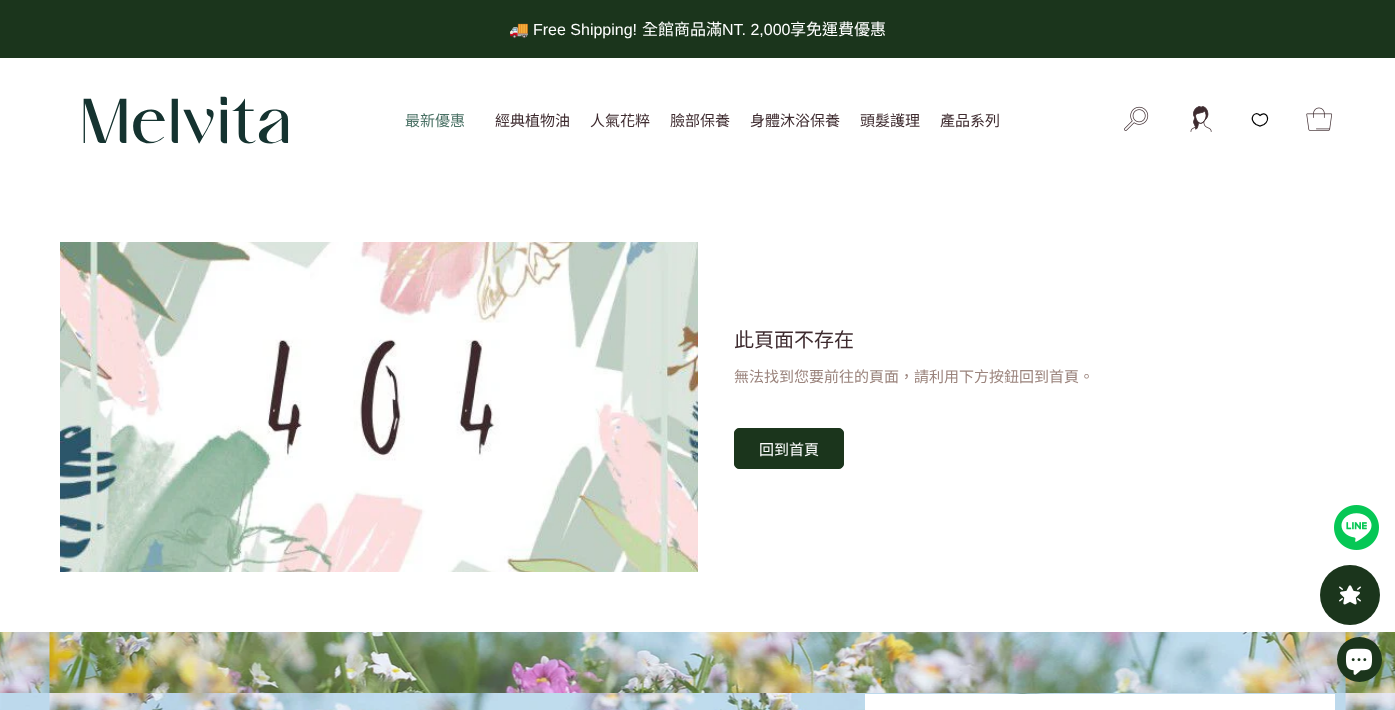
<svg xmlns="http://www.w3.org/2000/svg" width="1395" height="710">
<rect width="100%" height="100%" fill="#fff"/>
<rect width="1395" height="58" fill="#1b351c"/>
<text x="509" y="35" style="font-family:Noto Color Emoji;font-size:16px;fill:#fff">🚚</text>
<text x="533" y="35" style="font-family:Liberation Sans;font-size:16px;fill:#fff">Free Shipping!</text>
<text x="642" y="35" style="font-family:Noto Sans CJK TC;font-size:16px;fill:#fff">全館商品滿</text>
<text x="722" y="35" style="font-family:Liberation Sans;font-size:16px;fill:#fff">NT. 2,000</text>
<text x="790" y="35" style="font-family:Noto Sans CJK TC;font-size:16px;fill:#fff">享免運費優惠</text>
<image x="83" y="96" width="206" height="48" href="media/1.png"/>
<text x="405" y="126" style="font-family:Noto Sans TC;font-size:15px;fill:#4a7165">最新優惠</text>
<text x="495" y="126" style="font-family:Noto Sans TC;font-size:15px;fill:#3e2b2f">經典植物油</text>
<text x="590" y="126" style="font-family:Noto Sans TC;font-size:15px;fill:#3e2b2f">人氣花粹</text>
<text x="670" y="126" style="font-family:Noto Sans TC;font-size:15px;fill:#3e2b2f">臉部保養</text>
<text x="750" y="126" style="font-family:Noto Sans TC;font-size:15px;fill:#3e2b2f">身體沐浴保養</text>
<text x="860" y="126" style="font-family:Noto Sans TC;font-size:15px;fill:#3e2b2f">頭髮護理</text>
<text x="940" y="126" style="font-family:Noto Sans TC;font-size:15px;fill:#3e2b2f">產品系列</text>
<image x="1124" y="106" width="25" height="25" href="media/2.png"/>
<image x="1190" y="106" width="22" height="26" href="media/3.png"/>
<path d="M1259.5 115l.5 .5c5.5-5.5 11.5 3.5 4 9l-4 1.5l-4-1.5c-8-6-1-14 3.5-9.5z" fill="none" stroke="#000" stroke-width="1.2"/>
<image x="1306" y="107" width="27" height="24" href="media/4.png"/>
<image x="60" y="242" width="638" height="330" href="media/5.png"/>
<text x="734" y="347" style="font-family:Noto Sans TC;font-size:20px;fill:#3e2b2f">此頁面不存在</text>
<text x="734" y="382" style="font-family:Noto Sans TC;font-size:15px;fill:#9b847d">無法找到您要前往的頁面，請利用下方按鈕回到首頁。</text>
<rect x="734.5" y="428.5" width="109" height="40" rx="4.5" fill="#1b351c" stroke="#1b351c"/>
<text x="759" y="455" style="font-family:Noto Sans TC;font-size:15px;fill:#fff">回到首頁</text>
<image x="1334" y="505" width="45" height="45" href="media/6.png"/>
<image x="0" y="632" width="1395" height="78" href="media/7.png"/>
<rect x="865" y="694" width="470" height="16" fill="#fff"/>
<circle cx="1350" cy="595" r="30" fill="#1b351c"/>
<image x="1339" y="585" width="22" height="20" href="media/8.png"/>
<circle cx="1359.5" cy="659.5" r="22.5" fill="#1b351c"/>
<image x="1345" y="648" width="28" height="27" href="media/9.png"/>
</svg>
